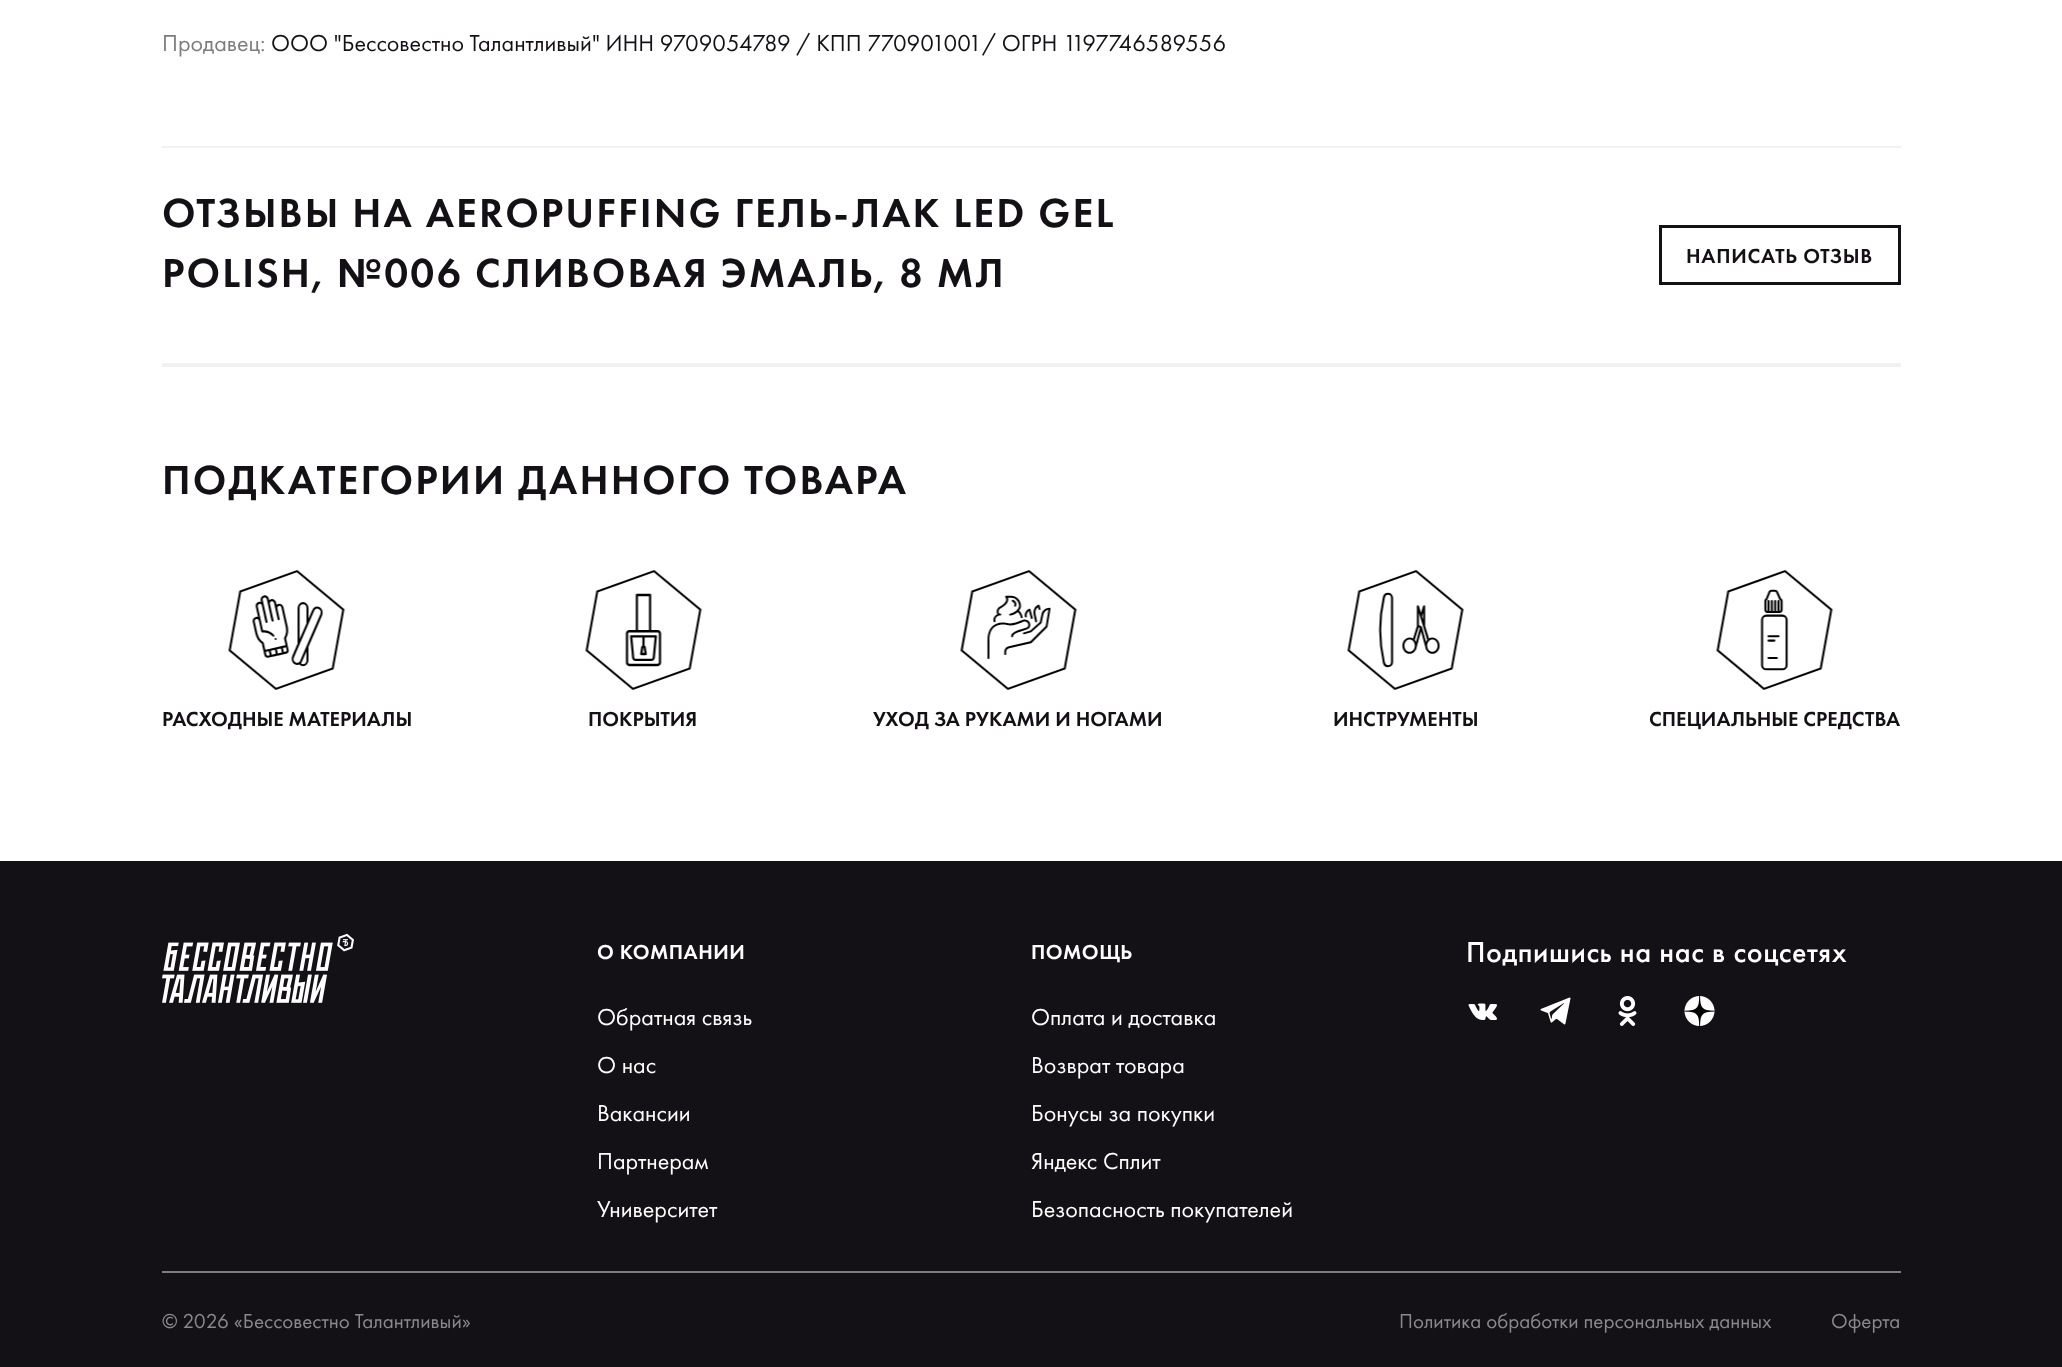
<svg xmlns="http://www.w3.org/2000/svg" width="2062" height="1367">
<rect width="100%" height="100%" fill="#fff"/>
<text x="162" y="51" style="font-family:Futura PT;font-size:24px;fill:#7d7d7d">Продавец:</text>
<text x="271" y="51" style="font-family:Futura PT;font-size:24px;fill:#141116">ООО "Бессовестно Талантливый" ИНН 9709054789 / КПП 770901001/ ОГРН 1197746589556</text>
<rect x="162" y="146" width="1739" height="2" fill="#eff1f3"/>
<rect x="162" y="363" width="1739" height="4" fill="#eff1f3"/>
<text x="162" y="227" style="font-family:Futura PT;font-size:42px;font-weight:500;letter-spacing:2.1px;fill:#141116">ОТЗЫВЫ НА AEROPUFFING ГЕЛЬ-ЛАК LED GEL</text>
<text x="162" y="287" style="font-family:Futura PT;font-size:42px;font-weight:500;letter-spacing:2.1px;fill:#141116">POLISH, №006 СЛИВОВАЯ ЭМАЛЬ, 8 МЛ</text>
<rect x="1660.5" y="226.5" width="239" height="57" fill="none" stroke="#141116" stroke-width="3"/>
<text x="1686" y="263" style="font-family:Futura PT;font-size:21px;font-weight:500;letter-spacing:0.75px;fill:#141116">НАПИСАТЬ ОТЗЫВ</text>
<text x="162" y="494" style="font-family:Futura PT;font-size:42px;font-weight:500;letter-spacing:2.1px;fill:#141116">ПОДКАТЕГОРИИ ДАННОГО ТОВАРА</text>
<image x="228" y="570" width="117" height="120" href="media/1.png"/>
<text x="162" y="726" style="font-family:Futura PT;font-size:21px;font-weight:500;fill:#141116">РАСХОДНЫЕ МАТЕРИАЛЫ</text>
<image x="585" y="570" width="117" height="120" href="media/2.png"/>
<text x="588" y="726" style="font-family:Futura PT;font-size:21px;font-weight:500;fill:#141116">ПОКРЫТИЯ</text>
<image x="960" y="570" width="117" height="120" href="media/3.png"/>
<text x="873" y="726" style="font-family:Futura PT;font-size:21px;font-weight:500;fill:#141116">УХОД ЗА РУКАМИ И НОГАМИ</text>
<image x="1347" y="570" width="117" height="120" href="media/4.png"/>
<text x="1333" y="726" style="font-family:Futura PT;font-size:21px;font-weight:500;fill:#141116">ИНСТРУМЕНТЫ</text>
<image x="1716" y="570" width="117" height="120" href="media/5.png"/>
<text x="1649" y="726" style="font-family:Futura PT;font-size:21px;font-weight:500;fill:#141116">СПЕЦИАЛЬНЫЕ СРЕДСТВА</text>
<rect y="861" width="2062" height="506" fill="#141116"/>
<image x="162" y="933" width="192" height="70" href="media/6.png"/>
<text x="597" y="959" style="font-family:Futura PT;font-size:21px;font-weight:500;letter-spacing:0.5px;fill:#fff">О КОМПАНИИ</text>
<text x="597" y="1025" style="font-family:Futura PT;font-size:24px;fill:#fff">Обратная связь</text>
<text x="597" y="1073" style="font-family:Futura PT;font-size:24px;fill:#fff">О нас</text>
<text x="597" y="1121" style="font-family:Futura PT;font-size:24px;fill:#fff">Вакансии</text>
<text x="597" y="1169" style="font-family:Futura PT;font-size:24px;fill:#fff">Партнерам</text>
<text x="597" y="1217" style="font-family:Futura PT;font-size:24px;fill:#fff">Университет</text>
<text x="1031" y="959" style="font-family:Futura PT;font-size:21px;font-weight:500;letter-spacing:0.5px;fill:#fff">ПОМОЩЬ</text>
<text x="1031" y="1025" style="font-family:Futura PT;font-size:24px;fill:#fff">Оплата и доставка</text>
<text x="1031" y="1073" style="font-family:Futura PT;font-size:24px;fill:#fff">Возврат товара</text>
<text x="1031" y="1121" style="font-family:Futura PT;font-size:24px;fill:#fff">Бонусы за покупки</text>
<text x="1031" y="1169" style="font-family:Futura PT;font-size:24px;fill:#fff">Яндекс Сплит</text>
<text x="1031" y="1217" style="font-family:Futura PT;font-size:24px;fill:#fff">Безопасность покупателей</text>
<text x="1466" y="962" style="font-family:'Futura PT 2';font-size:30px;font-weight:500;letter-spacing:0.6px;fill:#fff">Подпишись на нас в соцсетях</text>
<image x="1468" y="1003" width="29" height="17" href="media/7.png"/>
<image x="1540" y="997" width="31" height="28" href="media/8.png"/>
<image x="1618" y="996" width="19" height="30" href="media/9.png"/>
<image x="1684" y="996" width="31" height="30" href="media/10.png"/>
<rect x="162" y="1271" width="1739" height="2" fill="#7d7d7d"/>
<text x="162" y="1328" style="font-family:Futura PT;font-size:21px;fill:#8a888b">© 2026 «Бессовестно Талантливый»</text>
<text x="1399" y="1328" style="font-family:Futura PT;font-size:21px;fill:#8a888b">Политика обработки персональных данных</text>
<text x="1831" y="1328" style="font-family:Futura PT;font-size:21px;fill:#8a888b">Оферта</text>
</svg>
